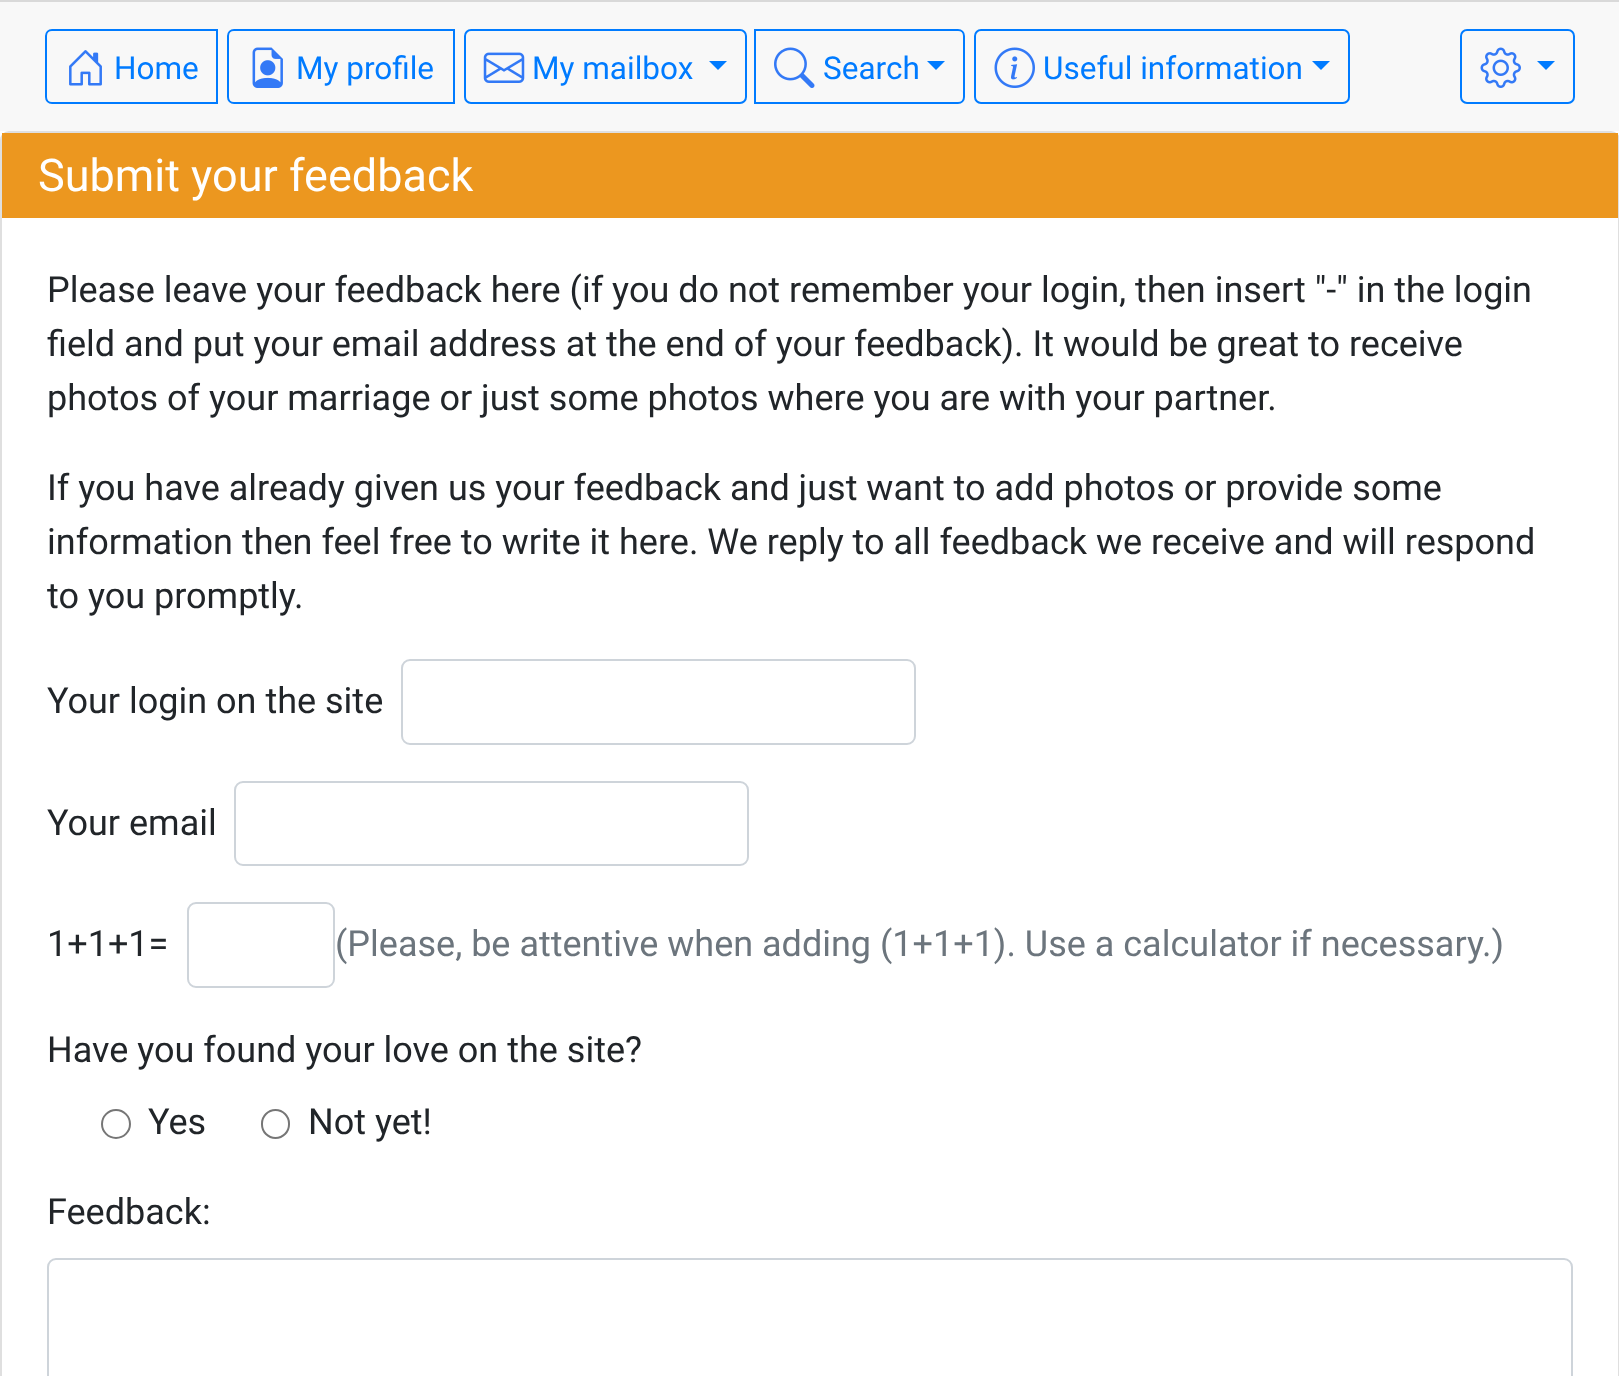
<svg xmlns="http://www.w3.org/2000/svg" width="1619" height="1376">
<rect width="100%" height="100%" fill="#fff"/>
<rect y="2" width="1619" height="129" fill="#f8f8f8"/>
<rect width="1619" height="2" fill="#d9d9d9"/>
<path d="M52 30h165v73h-165c-3.5 0-6-2.5-6-6v-61c0-3.5 2.5-6 6-6z" fill="none" stroke="#007bff" stroke-width="2"/>
<image x="69" y="50" width="33" height="36" href="media/1.png"/>
<text x="114" y="79" style="font-family:Roboto;font-size:31.5px;fill:#007bff">Home</text>
<path d="M234 30h220v73h-220c-3.5 0-6-2.5-6-6v-61c0-3.5 2.5-6 6-6z" fill="none" stroke="#007bff" stroke-width="2"/>
<image x="252" y="47" width="31" height="41" href="media/2.png"/>
<text x="296" y="79" style="font-family:Roboto;font-size:31.5px;fill:#007bff">My profile</text>
<rect x="465" y="30" width="281" height="73" rx="6" fill="none" stroke="#007bff" stroke-width="2"/>
<image x="483" y="52" width="42" height="31" href="media/3.png"/>
<text x="532" y="79" style="font-family:Roboto;font-size:31.5px;fill:#007bff">My mailbox</text>
<path d="M709 61h18l-9 9z" fill="#007bff"/>
<path d="M755 30h203c3.5 0 6 2.5 6 6v61c0 3.5-2.5 6-6 6h-203z" fill="none" stroke="#007bff" stroke-width="2"/>
<image x="774" y="47" width="41" height="41" href="media/4.png"/>
<text x="823" y="79" style="font-family:Roboto;font-size:31.5px;fill:#007bff">Search</text>
<path d="M927 61h18l-9 9z" fill="#007bff"/>
<rect x="975" y="30" width="374" height="73" rx="6" fill="none" stroke="#007bff" stroke-width="2"/>
<image x="994" y="47" width="41" height="41" href="media/5.png"/>
<text x="1043" y="79" style="font-family:Roboto;font-size:31.5px;fill:#007bff">Useful information</text>
<path d="M1312 61h18l-9 9z" fill="#007bff"/>
<rect x="1461" y="30" width="113" height="73" rx="6" fill="none" stroke="#007bff" stroke-width="2"/>
<image x="1480" y="47" width="41" height="41" href="media/6.png"/>
<path d="M1537 61h18l-9 9z" fill="#007bff"/>
<rect x="1" y="132" width="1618" height="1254" rx="8" fill="none" stroke="#dfdfdf" stroke-width="2"/>
<rect x="2" y="133" width="1616" height="85" fill="#ec971f"/>
<text x="38" y="191" style="font-family:Roboto;font-size:45px;fill:#fff">Submit your feedback</text>
<text x="47" y="302" style="font-family:Roboto;font-size:36px;fill:#212529">Please leave your feedback here (if you do not remember your login, then insert "-" in the login</text>
<text x="47" y="356" style="font-family:Roboto;font-size:36px;fill:#212529">field and put your email address at the end of your feedback). It would be great to receive</text>
<text x="47" y="410" style="font-family:Roboto;font-size:36px;fill:#212529">photos of your marriage or just some photos where you are with your partner.</text>
<text x="47" y="500" style="font-family:Roboto;font-size:36px;fill:#212529">If you have already given us your feedback and just want to add photos or provide some</text>
<text x="47" y="554" style="font-family:Roboto;font-size:36px;fill:#212529">information then feel free to write it here. We reply to all feedback we receive and will respond</text>
<text x="47" y="608" style="font-family:Roboto;font-size:36px;fill:#212529">to you promptly.</text>
<text x="47" y="713" style="font-family:Roboto;font-size:36px;fill:#212529">Your login on the site</text>
<rect x="402" y="660" width="513" height="84" rx="8" fill="none" stroke="#ced4da" stroke-width="2"/>
<text x="47" y="835" style="font-family:Roboto;font-size:36px;fill:#212529">Your email</text>
<rect x="235" y="782" width="513" height="83" rx="8" fill="none" stroke="#ced4da" stroke-width="2"/>
<text x="47" y="956" style="font-family:Roboto;font-size:36px;fill:#212529">1+1+1=</text>
<rect x="188" y="903" width="146" height="84" rx="8" fill="none" stroke="#ced4da" stroke-width="2"/>
<text x="335" y="956" style="font-family:Roboto;font-size:36px;fill:#6c757d">(Please, be attentive when adding (1+1+1). Use a calculator if necessary.)</text>
<text x="47" y="1062" style="font-family:Roboto;font-size:36px;fill:#212529">Have you found your love on the site?</text>
<circle cx="116" cy="1124" r="14" fill="none" stroke="#767676" stroke-width="2"/>
<text x="148" y="1134" style="font-family:Roboto;font-size:36px;fill:#212529">Yes</text>
<rect x="262" y="1110" width="27" height="28" rx="13.5" fill="none" stroke="#767676" stroke-width="2"/>
<text x="308" y="1134" style="font-family:Roboto;font-size:36px;fill:#212529">Not yet!</text>
<text x="47" y="1224" style="font-family:Roboto;font-size:36px;fill:#212529">Feedback:</text>
<rect x="48" y="1259" width="1524" height="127" rx="8" fill="none" stroke="#ced4da" stroke-width="2"/>
</svg>
